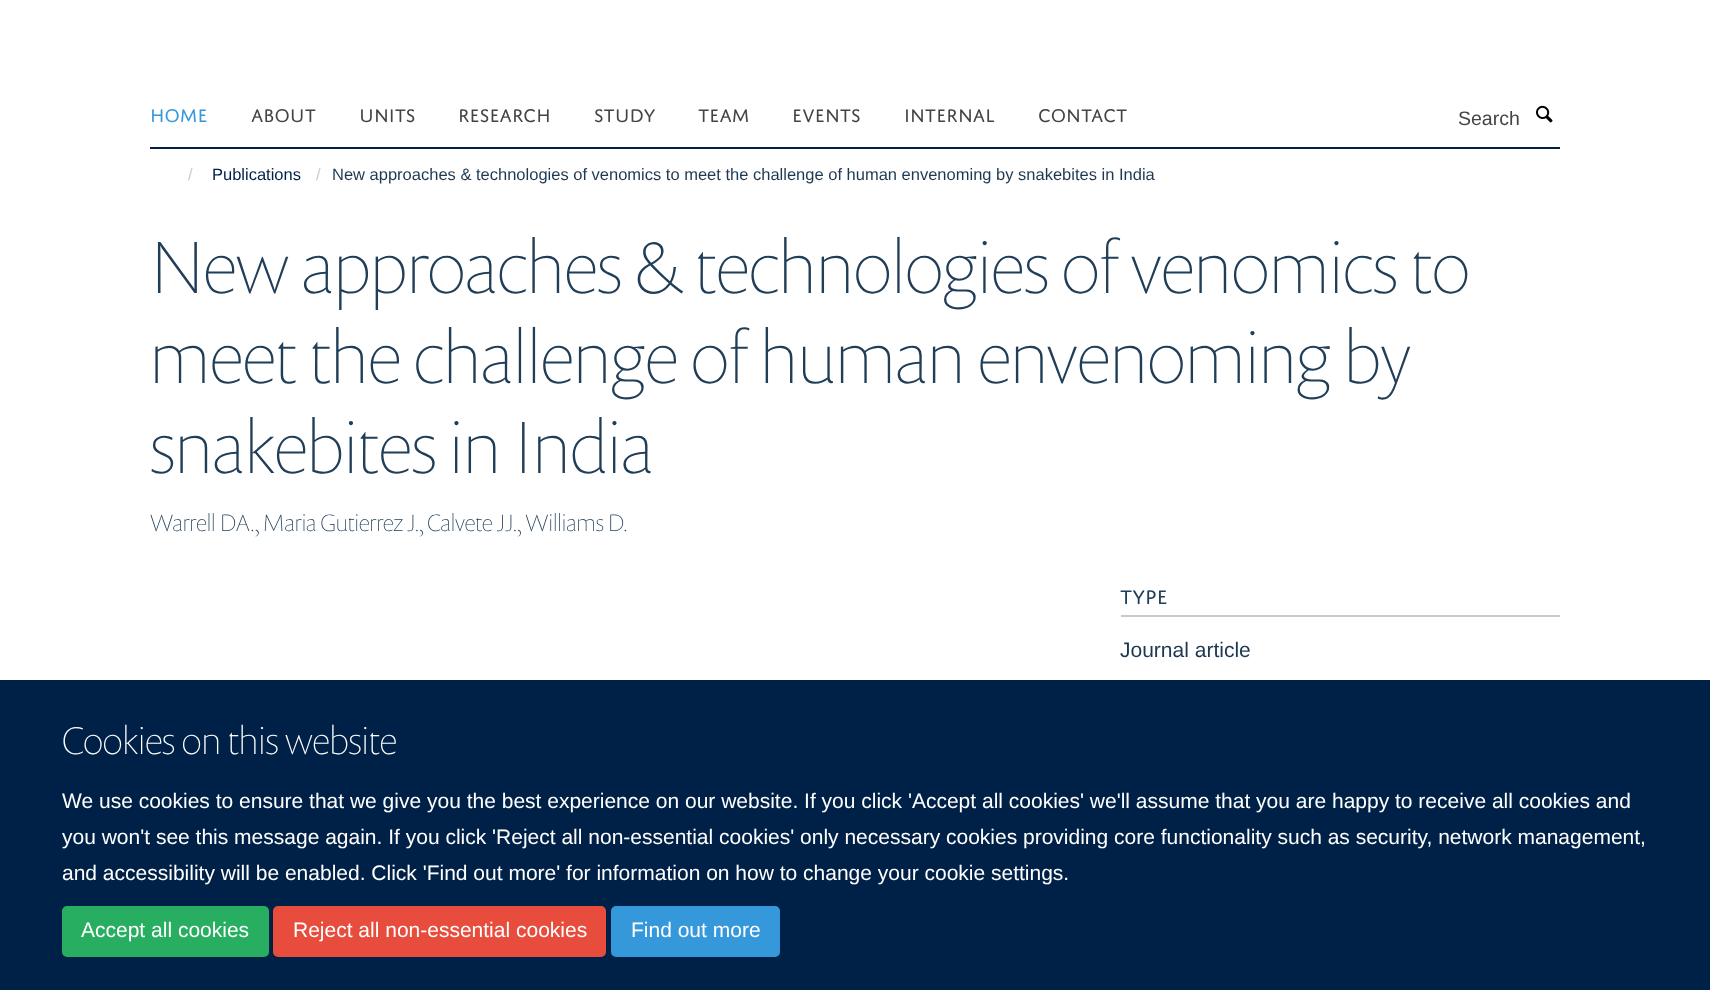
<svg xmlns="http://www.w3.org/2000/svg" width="1710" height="990">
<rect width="100%" height="100%" fill="#fff"/>
<rect x="150" y="147" width="1410" height="2" fill="#002147"/>
<text x="150" y="122" style="font-family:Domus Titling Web;font-size:19.5px;fill:#3498db">HOME</text>
<text x="251" y="122" style="font-family:Domus Titling Web;font-size:19.5px;fill:#444">ABOUT</text>
<text x="359" y="122" style="font-family:Domus Titling Web;font-size:19.5px;fill:#444">UNITS</text>
<text x="458" y="122" style="font-family:Domus Titling Web;font-size:19.5px;fill:#444">RESEARCH</text>
<text x="594" y="122" style="font-family:Domus Titling Web;font-size:19.5px;fill:#444">STUDY</text>
<text x="698" y="122" style="font-family:Domus Titling Web;font-size:19.5px;fill:#444">TEAM</text>
<text x="792" y="122" style="font-family:Domus Titling Web;font-size:19.5px;fill:#444">EVENTS</text>
<text x="904" y="122" style="font-family:Domus Titling Web;font-size:19.5px;fill:#444">INTERNAL</text>
<text x="1038" y="122" style="font-family:Domus Titling Web;font-size:19.5px;fill:#444">CONTACT</text>
<text x="1458" y="125" style="font-family:Liberation Sans;font-size:19.5px;fill:#444">Search</text>
<image x="1536" y="105" width="17" height="18" href="media/1.png"/>
<text x="188" y="180" style="font-family:Liberation Sans;font-size:16.5px;fill:#ccc">/</text>
<text x="212" y="180" style="font-family:Liberation Sans;font-size:16.5px;fill:#002147">Publications</text>
<text x="316" y="180" style="font-family:Liberation Sans;font-size:16.5px;fill:#ccc">/</text>
<text x="332" y="180" style="font-family:Liberation Sans;font-size:16.5px;fill:#1d3850">New approaches &amp; technologies of venomics to meet the challenge of human envenoming by snakebites in India</text>
<text x="150" y="293" style="font-family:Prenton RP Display;font-size:75px;font-weight:100;fill:#203e58">New approaches &amp; technologies of venomics to</text>
<text x="150" y="383" style="font-family:Prenton RP Display;font-size:75px;font-weight:100;fill:#203e58">meet the challenge of human envenoming by</text>
<text x="150" y="473" style="font-family:Prenton RP Display;font-size:75px;font-weight:100;fill:#203e58">snakebites in India</text>
<text x="150" y="531" style="font-family:Prenton RP Display;font-size:24px;font-weight:100;fill:#203e58">Warrell DA., Maria Gutierrez J., Calvete JJ., Williams D.</text>
<rect x="1121" y="615" width="439" height="2" fill="#c6cacf"/>
<text x="1120" y="604" style="font-family:Domus Titling Web;font-size:21px;fill:#203e58">TYPE</text>
<text x="1120" y="657" style="font-family:Liberation Sans;font-size:21px;fill:#1d3850">Journal article</text>
<rect y="680" width="1710" height="310" fill="#002147"/>
<text x="62" y="754" style="font-family:Prenton RP Display;font-size:39px;font-weight:100;fill:#fff">Cookies on this website</text>
<text x="62" y="808" style="font-family:Liberation Sans;font-size:21px;fill:#fff">We use cookies to ensure that we give you the best experience on our website. If you click 'Accept all cookies' we'll assume that you are happy to receive all cookies and</text>
<text x="62" y="844" style="font-family:Liberation Sans;font-size:21px;fill:#fff">you won't see this message again. If you click 'Reject all non-essential cookies' only necessary cookies providing core functionality such as security, network management,</text>
<text x="62" y="880" style="font-family:Liberation Sans;font-size:21px;fill:#fff">and accessibility will be enabled. Click 'Find out more' for information on how to change your cookie settings.</text>
<rect x="63" y="907" width="205" height="49" rx="4" fill="#27ae60" stroke="#27ae60" stroke-width="2"/>
<text x="81" y="937" style="font-family:Liberation Sans;font-size:21px;fill:#fff">Accept all cookies</text>
<rect x="274" y="907" width="331" height="49" rx="4" fill="#e74c3c" stroke="#e74c3c" stroke-width="2"/>
<text x="293" y="937" style="font-family:Liberation Sans;font-size:21px;fill:#fff">Reject all non-essential cookies</text>
<rect x="612" y="907" width="167" height="49" rx="4" fill="#3498db" stroke="#3498db" stroke-width="2"/>
<text x="631" y="937" style="font-family:Liberation Sans;font-size:21px;fill:#fff">Find out more</text>
</svg>
